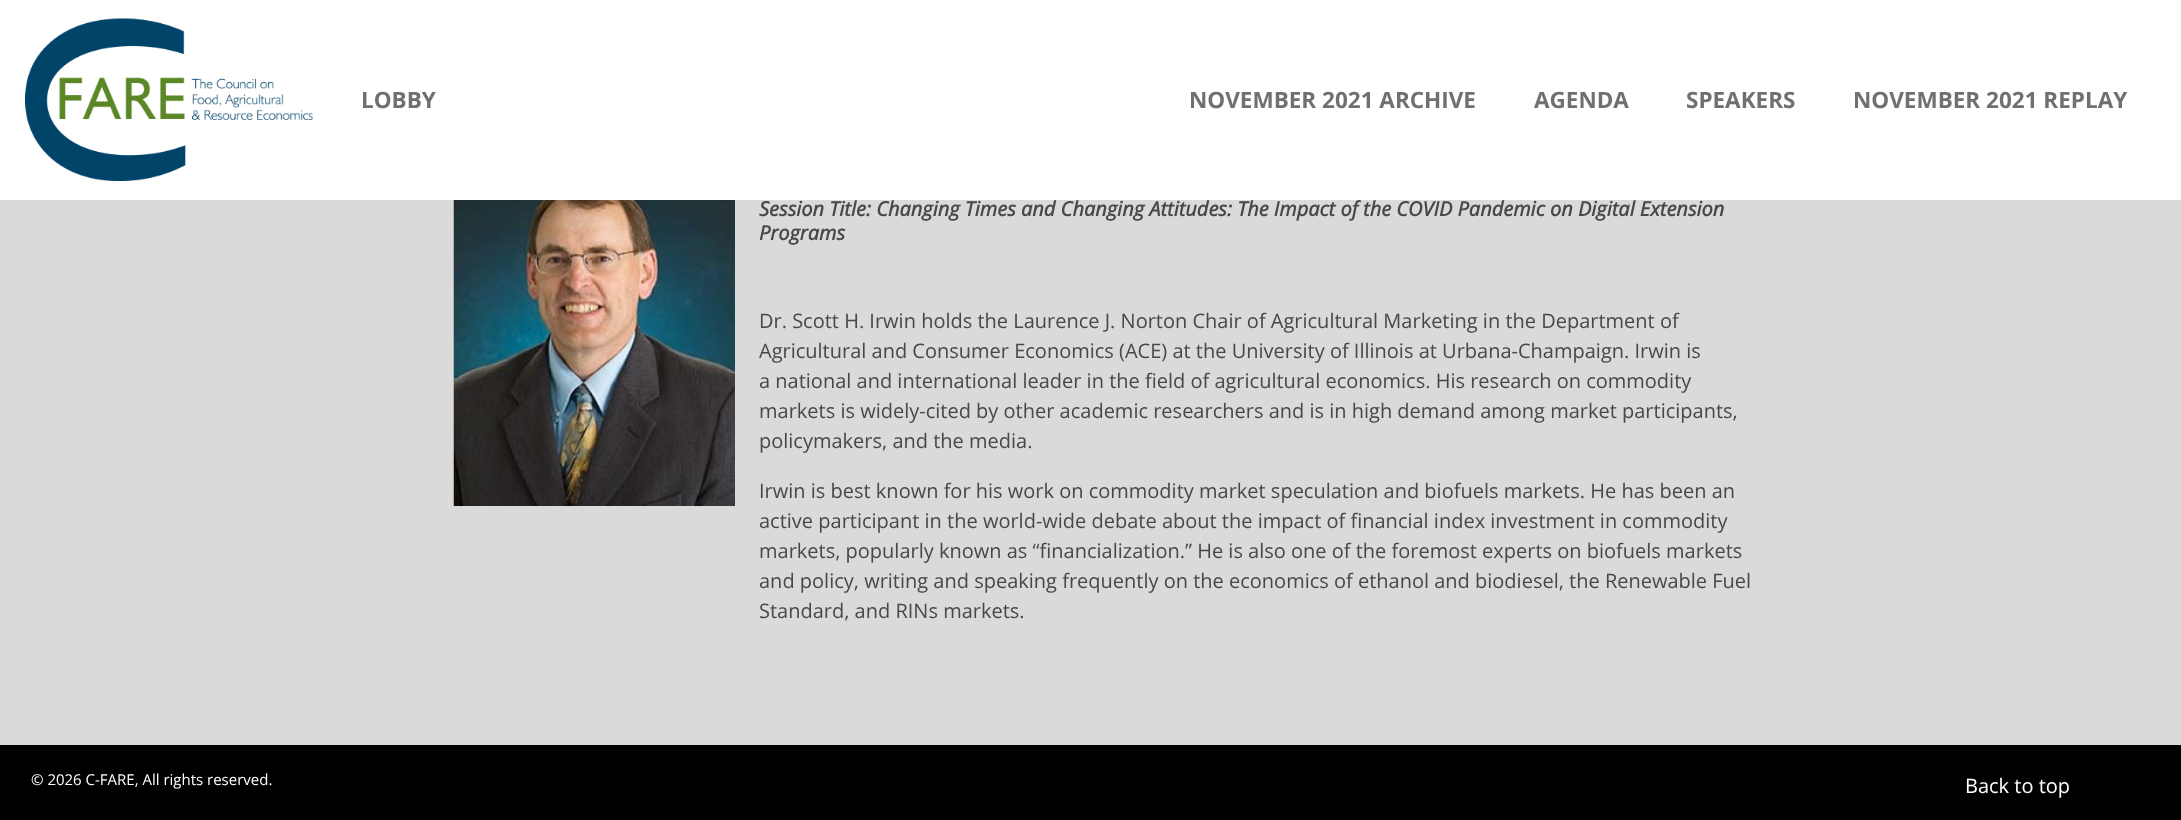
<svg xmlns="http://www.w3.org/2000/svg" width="2181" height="820">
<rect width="100%" height="100%" fill="#000"/>
<rect width="2181" height="200" fill="#fff"/>
<image x="25" y="18" width="288" height="163" href="media/1.png"/>
<text x="361" y="108" style="font-family:Open Sans;font-size:22.5px;font-weight:bold;fill:#707070">LOBBY</text>
<text x="1189" y="108" style="font-family:Open Sans;font-size:22.5px;font-weight:bold;fill:#707070">NOVEMBER 2021 ARCHIVE</text>
<text x="1534" y="108" style="font-family:Open Sans;font-size:22.5px;font-weight:bold;fill:#707070">AGENDA</text>
<text x="1686" y="108" style="font-family:Open Sans;font-size:22.5px;font-weight:bold;fill:#707070">SPEAKERS</text>
<text x="1853" y="108" style="font-family:Open Sans;font-size:22.5px;font-weight:bold;fill:#707070">NOVEMBER 2021 REPLAY</text>
<rect y="200" width="2181" height="545" fill="#dadada"/>
<image x="453" y="200" width="282" height="306" href="media/2.png"/>
<text x="759" y="216" style="font-family:Open Sans;font-size:20px;font-weight:bold;font-style:italic;fill:#484848">Session Title: Changing Times and Changing Attitudes: The Impact of the COVID Pandemic on Digital Extension</text>
<text x="759" y="240" style="font-family:Open Sans;font-size:20px;font-weight:bold;font-style:italic;fill:#484848">Programs</text>
<text x="759" y="328" style="font-family:Open Sans;font-size:20px;fill:#484848">Dr. Scott H. Irwin holds the Laurence J. Norton Chair of Agricultural Marketing in the Department of</text>
<text x="759" y="358" style="font-family:Open Sans;font-size:20px;fill:#484848">Agricultural and Consumer Economics (ACE) at the University of Illinois at Urbana-Champaign. Irwin is</text>
<text x="759" y="388" style="font-family:Open Sans;font-size:20px;fill:#484848">a national and international leader in the field of agricultural economics. His research on commodity</text>
<text x="759" y="418" style="font-family:Open Sans;font-size:20px;fill:#484848">markets is widely-cited by other academic researchers and is in high demand among market participants,</text>
<text x="759" y="448" style="font-family:Open Sans;font-size:20px;fill:#484848">policymakers, and the media.</text>
<text x="759" y="498" style="font-family:Open Sans;font-size:20px;fill:#484848">Irwin is best known for his work on commodity market speculation and biofuels markets. He has been an</text>
<text x="759" y="528" style="font-family:Open Sans;font-size:20px;fill:#484848">active participant in the world-wide debate about the impact of financial index investment in commodity</text>
<text x="759" y="558" style="font-family:Open Sans;font-size:20px;fill:#484848">markets, popularly known as “financialization.” He is also one of the foremost experts on biofuels markets</text>
<text x="759" y="588" style="font-family:Open Sans;font-size:20px;fill:#484848">and policy, writing and speaking frequently on the economics of ethanol and biodiesel, the Renewable Fuel</text>
<text x="759" y="618" style="font-family:Open Sans;font-size:20px;fill:#484848">Standard, and RINs markets.</text>
<text x="31" y="785" style="font-family:Open Sans;font-size:15px;fill:#fff">© 2026 C-FARE, All rights reserved.</text>
<text x="1965" y="793" style="font-family:Open Sans;font-size:20px;fill:#fff">Back to top</text>
</svg>
